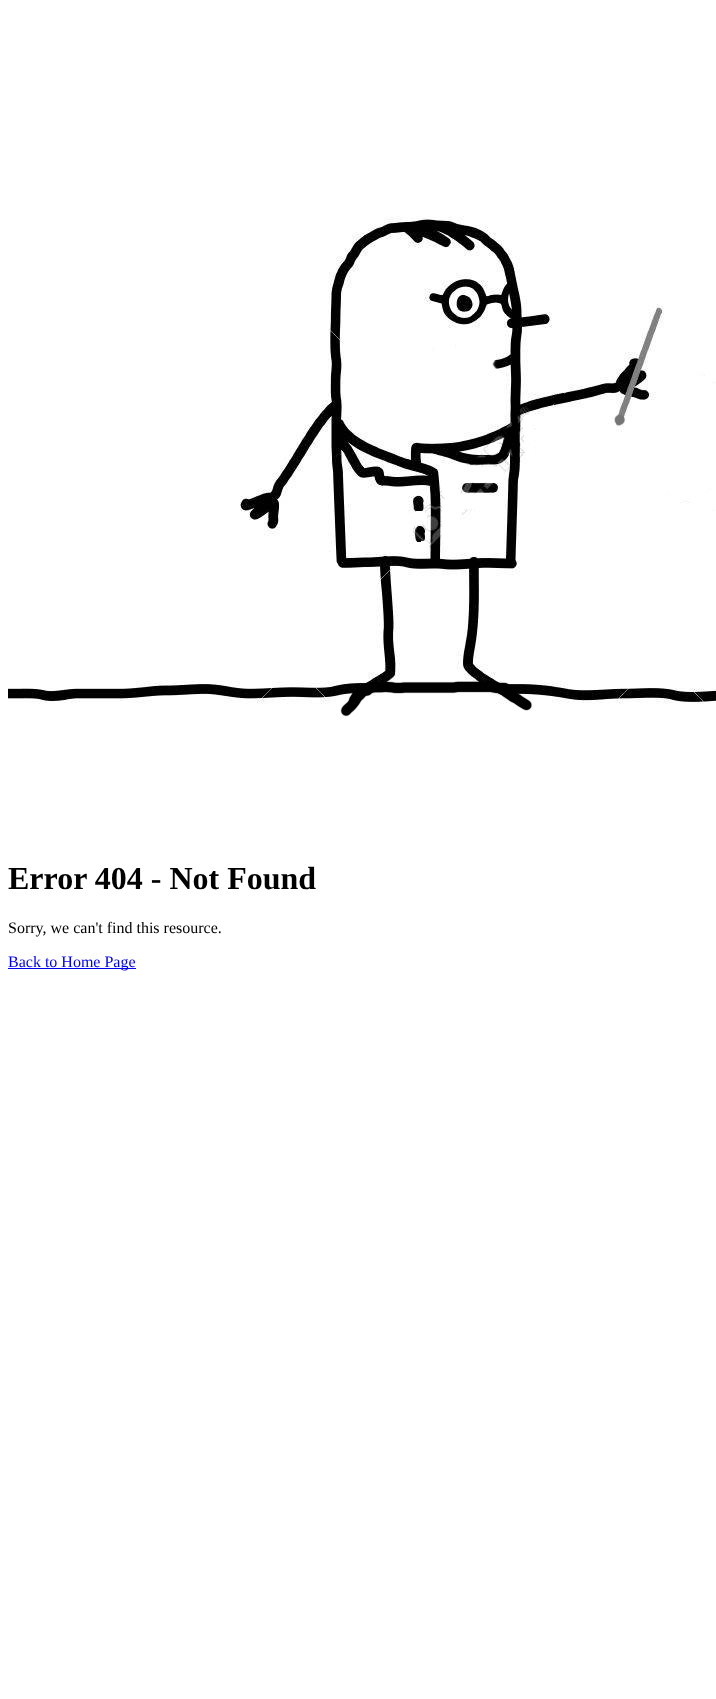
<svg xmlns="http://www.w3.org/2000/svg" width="716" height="1699">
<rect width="100%" height="100%" fill="#fff"/>
<image x="8" y="216" width="708" height="501" href="media/1.png"/>
<text x="8" y="889" style="font-family:Liberation Serif;font-size:32px;font-weight:bold;fill:#000">Error 404 - Not Found</text>
<text x="8" y="933" style="font-family:Liberation Serif;font-size:16px;fill:#000">Sorry, we can't find this resource.</text>
<rect x="8" y="968" width="128" height="1" fill="#00e"/>
<text x="8" y="967" style="font-family:Liberation Serif;font-size:16px;fill:#00e">Back to Home Page</text>
</svg>
